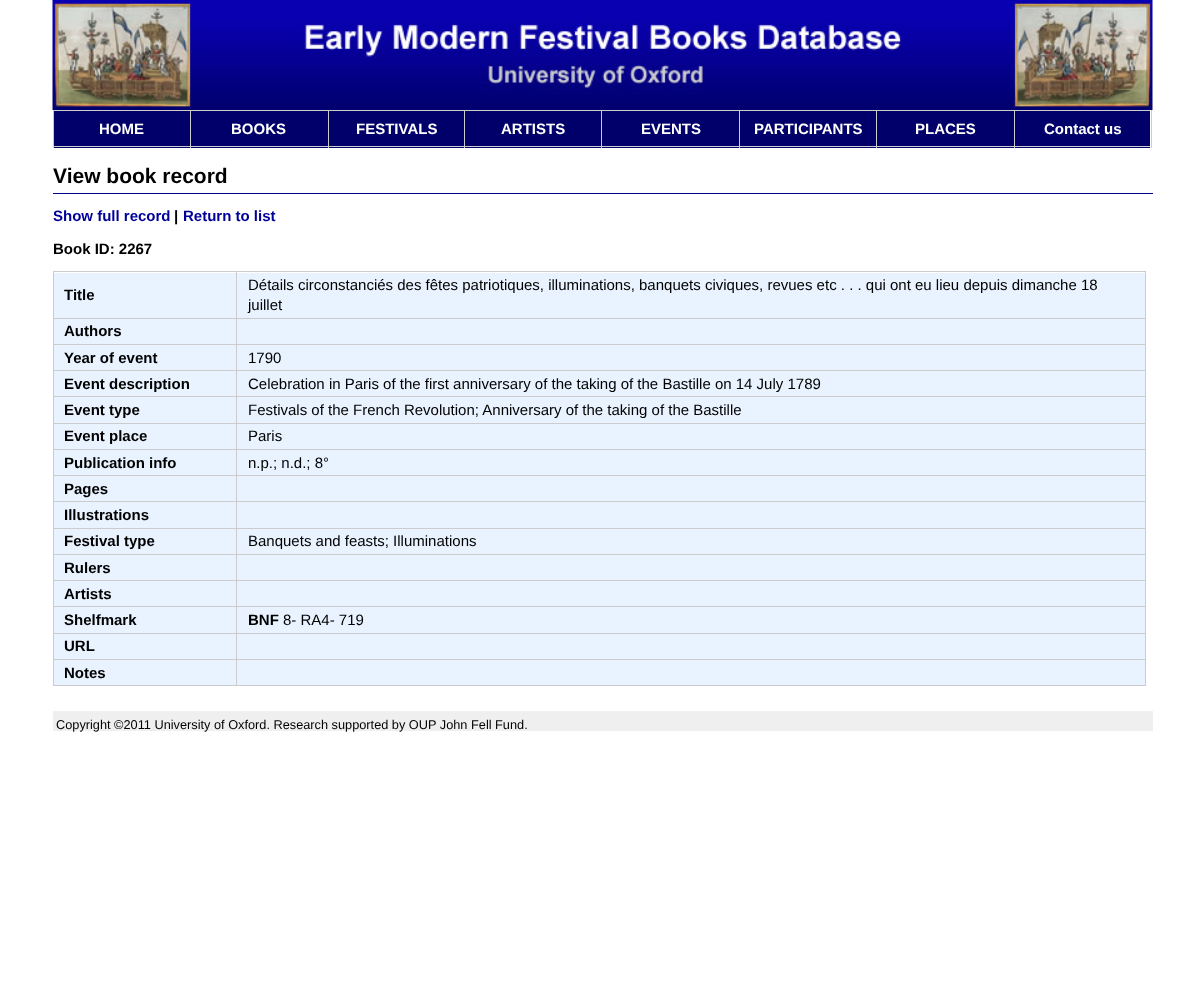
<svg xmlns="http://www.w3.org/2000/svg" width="1204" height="984">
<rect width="100%" height="100%" fill="#fff"/>
<image x="52" y="0" width="1101" height="110" href="media/1.png"/>
<rect x="1151" y="110" width="1" height="38" fill="#ccc"/>
<rect x="54" y="111" width="136" height="37" fill="#01006b"/>
<rect x="53" y="110" width="1097" height="1" fill="#ccc"/>
<rect x="53" y="146" width="137" height="1" fill="#ccc"/>
<rect x="53" y="110" width="1" height="38" fill="#ccc"/>
<text x="99" y="134" style="font-family:Liberation Sans;font-size:15px;font-weight:bold;fill:#fff">HOME</text>
<rect x="191" y="111" width="137" height="37" fill="#01006b"/>
<rect x="190" y="146" width="138" height="1" fill="#ccc"/>
<rect x="190" y="110" width="1" height="38" fill="#ccc"/>
<text x="231" y="134" style="font-family:Liberation Sans;font-size:15px;font-weight:bold;fill:#fff">BOOKS</text>
<rect x="329" y="111" width="135" height="37" fill="#01006b"/>
<rect x="328" y="146" width="136" height="1" fill="#ccc"/>
<rect x="328" y="110" width="1" height="38" fill="#ccc"/>
<text x="356" y="134" style="font-family:Liberation Sans;font-size:15px;font-weight:bold;fill:#fff">FESTIVALS</text>
<rect x="465" y="111" width="136" height="37" fill="#01006b"/>
<rect x="464" y="146" width="137" height="1" fill="#ccc"/>
<rect x="464" y="110" width="1" height="38" fill="#ccc"/>
<text x="501" y="134" style="font-family:Liberation Sans;font-size:15px;font-weight:bold;fill:#fff">ARTISTS</text>
<rect x="602" y="111" width="137" height="37" fill="#01006b"/>
<rect x="601" y="146" width="138" height="1" fill="#ccc"/>
<rect x="601" y="110" width="1" height="38" fill="#ccc"/>
<text x="641" y="134" style="font-family:Liberation Sans;font-size:15px;font-weight:bold;fill:#fff">EVENTS</text>
<rect x="740" y="111" width="136" height="37" fill="#01006b"/>
<rect x="739" y="146" width="137" height="1" fill="#ccc"/>
<rect x="739" y="110" width="1" height="38" fill="#ccc"/>
<text x="754" y="134" style="font-family:Liberation Sans;font-size:15px;font-weight:bold;fill:#fff">PARTICIPANTS</text>
<rect x="877" y="111" width="137" height="37" fill="#01006b"/>
<rect x="876" y="146" width="138" height="1" fill="#ccc"/>
<rect x="876" y="110" width="1" height="38" fill="#ccc"/>
<text x="915" y="134" style="font-family:Liberation Sans;font-size:15px;font-weight:bold;fill:#fff">PLACES</text>
<rect x="1015" y="111" width="135" height="37" fill="#01006b"/>
<rect x="1014" y="146" width="136" height="1" fill="#ccc"/>
<rect x="1014" y="110" width="1" height="38" fill="#ccc"/>
<text x="1044" y="134" style="font-family:Liberation Sans;font-size:15px;font-weight:bold;fill:#fff">Contact us</text>
<rect x="53" y="193" width="1100" height="1" fill="#00008c"/>
<text x="53" y="183" style="font-family:Liberation Sans;font-size:21px;font-weight:bold;fill:#000">View book record</text>
<text x="53" y="221" style="font-family:Liberation Sans;font-size:15px;font-weight:bold;fill:#009">Show full record</text>
<text x="174" y="221" style="font-family:Liberation Sans;font-size:15px;font-weight:bold;fill:#000">|</text>
<text x="183" y="221" style="font-family:Liberation Sans;font-size:15px;font-weight:bold;fill:#009">Return to list</text>
<text x="53" y="254" style="font-family:Liberation Sans;font-size:15px;font-weight:bold;fill:#000">Book ID: 2267</text>
<rect x="54" y="273" width="1091" height="45" fill="#e9f3ff"/>
<rect x="236" y="271" width="910" height="1" fill="#ccc"/>
<rect x="236" y="318" width="910" height="1" fill="#ccc"/>
<rect x="54" y="319" width="1091" height="25" fill="#e9f3ff"/>
<rect x="236" y="344" width="910" height="1" fill="#ccc"/>
<rect x="54" y="345" width="1091" height="25" fill="#e9f3ff"/>
<rect x="236" y="370" width="910" height="1" fill="#ccc"/>
<rect x="54" y="371" width="1091" height="27" fill="#e9f3ff"/>
<rect x="236" y="396" width="910" height="1" fill="#ccc"/>
<rect x="54" y="398" width="1091" height="25" fill="#e9f3ff"/>
<rect x="236" y="423" width="910" height="1" fill="#ccc"/>
<rect x="54" y="424" width="1091" height="25" fill="#e9f3ff"/>
<rect x="236" y="449" width="910" height="1" fill="#ccc"/>
<rect x="54" y="450" width="1091" height="25" fill="#e9f3ff"/>
<rect x="236" y="475" width="910" height="1" fill="#ccc"/>
<rect x="54" y="476" width="1091" height="27" fill="#e9f3ff"/>
<rect x="236" y="501" width="910" height="1" fill="#ccc"/>
<rect x="54" y="503" width="1091" height="25" fill="#e9f3ff"/>
<rect x="236" y="528" width="910" height="1" fill="#ccc"/>
<rect x="54" y="529" width="1091" height="25" fill="#e9f3ff"/>
<rect x="236" y="554" width="910" height="1" fill="#ccc"/>
<rect x="54" y="555" width="1091" height="25" fill="#e9f3ff"/>
<rect x="236" y="580" width="910" height="1" fill="#ccc"/>
<rect x="54" y="581" width="1091" height="27" fill="#e9f3ff"/>
<rect x="236" y="606" width="910" height="1" fill="#ccc"/>
<rect x="54" y="608" width="1091" height="25" fill="#e9f3ff"/>
<rect x="236" y="633" width="910" height="1" fill="#ccc"/>
<rect x="54" y="634" width="1091" height="25" fill="#e9f3ff"/>
<rect x="236" y="659" width="910" height="1" fill="#ccc"/>
<rect x="54" y="660" width="1091" height="25" fill="#e9f3ff"/>
<rect x="1145" y="659" width="1" height="27" fill="#ccc"/>
<rect x="236" y="685" width="910" height="1" fill="#ccc"/>
<rect x="236" y="659" width="1" height="27" fill="#ccc"/>
<rect x="53" y="659" width="185" height="1" fill="#ccc"/>
<rect x="236" y="633" width="1" height="27" fill="#ccc"/>
<rect x="53" y="633" width="185" height="1" fill="#ccc"/>
<rect x="236" y="606" width="1" height="28" fill="#ccc"/>
<rect x="53" y="606" width="185" height="1" fill="#ccc"/>
<rect x="236" y="580" width="1" height="28" fill="#ccc"/>
<rect x="53" y="580" width="185" height="1" fill="#ccc"/>
<rect x="236" y="554" width="1" height="27" fill="#ccc"/>
<rect x="53" y="554" width="185" height="1" fill="#ccc"/>
<rect x="236" y="528" width="1" height="27" fill="#ccc"/>
<rect x="53" y="528" width="185" height="1" fill="#ccc"/>
<rect x="236" y="501" width="1" height="28" fill="#ccc"/>
<rect x="53" y="501" width="185" height="1" fill="#ccc"/>
<rect x="236" y="475" width="1" height="28" fill="#ccc"/>
<rect x="53" y="475" width="185" height="1" fill="#ccc"/>
<rect x="236" y="449" width="1" height="27" fill="#ccc"/>
<rect x="53" y="449" width="185" height="1" fill="#ccc"/>
<rect x="236" y="423" width="1" height="27" fill="#ccc"/>
<rect x="53" y="423" width="185" height="1" fill="#ccc"/>
<rect x="236" y="396" width="1" height="28" fill="#ccc"/>
<rect x="53" y="396" width="185" height="1" fill="#ccc"/>
<rect x="236" y="370" width="1" height="28" fill="#ccc"/>
<rect x="53" y="370" width="185" height="1" fill="#ccc"/>
<rect x="236" y="344" width="1" height="27" fill="#ccc"/>
<rect x="53" y="344" width="185" height="1" fill="#ccc"/>
<rect x="236" y="318" width="1" height="27" fill="#ccc"/>
<rect x="53" y="318" width="185" height="1" fill="#ccc"/>
<rect x="236" y="271" width="1" height="48" fill="#ccc"/>
<rect x="53" y="271" width="185" height="1" fill="#ccc"/>
<rect x="53" y="685" width="185" height="1" fill="#ccc"/>
<rect x="53" y="659" width="1" height="27" fill="#ccc"/>
<rect x="53" y="633" width="1" height="27" fill="#ccc"/>
<rect x="53" y="606" width="1" height="28" fill="#ccc"/>
<rect x="53" y="580" width="1" height="28" fill="#ccc"/>
<rect x="53" y="554" width="1" height="27" fill="#ccc"/>
<rect x="53" y="528" width="1" height="27" fill="#ccc"/>
<rect x="53" y="501" width="1" height="28" fill="#ccc"/>
<rect x="53" y="475" width="1" height="28" fill="#ccc"/>
<rect x="53" y="449" width="1" height="27" fill="#ccc"/>
<rect x="53" y="423" width="1" height="27" fill="#ccc"/>
<rect x="53" y="396" width="1" height="28" fill="#ccc"/>
<rect x="53" y="370" width="1" height="28" fill="#ccc"/>
<rect x="53" y="344" width="1" height="27" fill="#ccc"/>
<rect x="53" y="318" width="1" height="27" fill="#ccc"/>
<rect x="53" y="271" width="1" height="48" fill="#ccc"/>
<text x="64" y="300" style="font-family:Liberation Sans;font-size:15px;font-weight:bold;fill:#000">Title</text>
<rect x="1145" y="633" width="1" height="27" fill="#ccc"/>
<rect x="1145" y="606" width="1" height="28" fill="#ccc"/>
<rect x="1145" y="580" width="1" height="28" fill="#ccc"/>
<rect x="1145" y="554" width="1" height="27" fill="#ccc"/>
<rect x="1145" y="528" width="1" height="27" fill="#ccc"/>
<rect x="1145" y="501" width="1" height="28" fill="#ccc"/>
<rect x="1145" y="475" width="1" height="28" fill="#ccc"/>
<rect x="1145" y="449" width="1" height="27" fill="#ccc"/>
<rect x="1145" y="423" width="1" height="27" fill="#ccc"/>
<rect x="1145" y="396" width="1" height="28" fill="#ccc"/>
<rect x="1145" y="370" width="1" height="28" fill="#ccc"/>
<rect x="1145" y="344" width="1" height="27" fill="#ccc"/>
<rect x="1145" y="318" width="1" height="27" fill="#ccc"/>
<rect x="1145" y="271" width="1" height="48" fill="#ccc"/>
<text x="248" y="290" style="font-family:Liberation Sans;font-size:15px;fill:#000">Détails circonstanciés des fêtes patriotiques, illuminations, banquets civiques, revues etc . . . qui ont eu lieu depuis dimanche 18</text>
<text x="248" y="310" style="font-family:Liberation Sans;font-size:15px;fill:#000">juillet</text>
<text x="64" y="336" style="font-family:Liberation Sans;font-size:15px;font-weight:bold;fill:#000">Authors</text>
<text x="64" y="363" style="font-family:Liberation Sans;font-size:15px;font-weight:bold;fill:#000">Year of event</text>
<text x="248" y="363" style="font-family:Liberation Sans;font-size:15px;fill:#000">1790</text>
<text x="64" y="389" style="font-family:Liberation Sans;font-size:15px;font-weight:bold;fill:#000">Event description</text>
<text x="248" y="389" style="font-family:Liberation Sans;font-size:15px;fill:#000">Celebration in Paris of the first anniversary of the taking of the Bastille on 14 July 1789</text>
<text x="64" y="415" style="font-family:Liberation Sans;font-size:15px;font-weight:bold;fill:#000">Event type</text>
<text x="248" y="415" style="font-family:Liberation Sans;font-size:15px;fill:#000">Festivals of the French Revolution; Anniversary of the taking of the Bastille</text>
<text x="64" y="441" style="font-family:Liberation Sans;font-size:15px;font-weight:bold;fill:#000">Event place</text>
<text x="248" y="441" style="font-family:Liberation Sans;font-size:15px;fill:#000">Paris</text>
<text x="64" y="468" style="font-family:Liberation Sans;font-size:15px;font-weight:bold;fill:#000">Publication info</text>
<text x="248" y="468" style="font-family:Liberation Sans;font-size:15px;fill:#000">n.p.; n.d.; 8°</text>
<text x="64" y="494" style="font-family:Liberation Sans;font-size:15px;font-weight:bold;fill:#000">Pages</text>
<text x="64" y="520" style="font-family:Liberation Sans;font-size:15px;font-weight:bold;fill:#000">Illustrations</text>
<text x="64" y="546" style="font-family:Liberation Sans;font-size:15px;font-weight:bold;fill:#000">Festival type</text>
<text x="248" y="546" style="font-family:Liberation Sans;font-size:15px;fill:#000">Banquets and feasts; Illuminations</text>
<text x="64" y="573" style="font-family:Liberation Sans;font-size:15px;font-weight:bold;fill:#000">Rulers</text>
<text x="64" y="599" style="font-family:Liberation Sans;font-size:15px;font-weight:bold;fill:#000">Artists</text>
<text x="64" y="625" style="font-family:Liberation Sans;font-size:15px;font-weight:bold;fill:#000">Shelfmark</text>
<text x="248" y="625" style="font-family:Liberation Sans;font-size:15px;font-weight:bold;fill:#000">BNF</text>
<text x="283" y="625" style="font-family:Liberation Sans;font-size:15px;fill:#000">8- RA4- 719</text>
<text x="64" y="651" style="font-family:Liberation Sans;font-size:15px;font-weight:bold;fill:#000">URL</text>
<text x="64" y="678" style="font-family:Liberation Sans;font-size:15px;font-weight:bold;fill:#000">Notes</text>
<rect x="53" y="711" width="1100" height="20" fill="#efefef"/>
<text x="56" y="729" style="font-family:Liberation Sans;font-size:12.75px;fill:#000">Copyright ©2011 University of Oxford. Research supported by OUP John Fell Fund.</text>
</svg>
